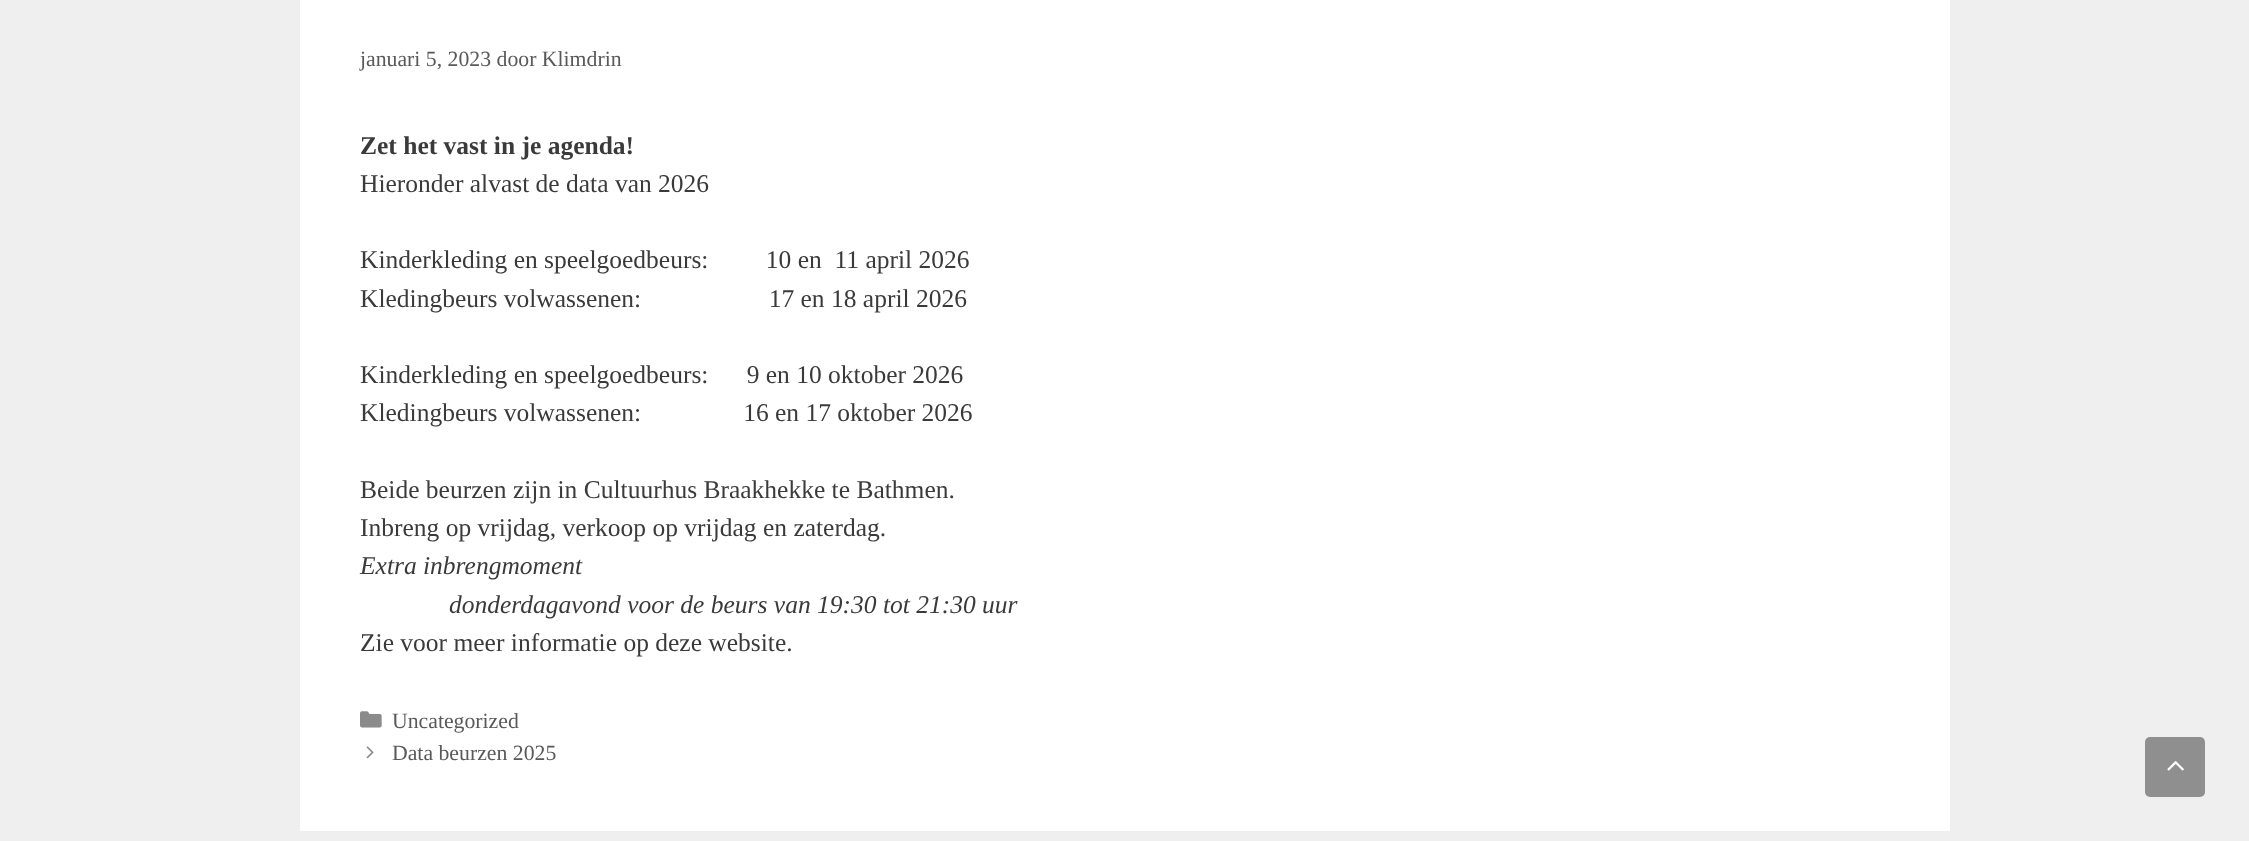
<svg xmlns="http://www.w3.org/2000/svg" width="2249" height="841">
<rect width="100%" height="100%" fill="#efefef"/>
<rect x="300" width="1650" height="831" fill="#fff"/>
<text x="360" y="66" style="font-family:Liberation Serif;font-size:21.75px;fill:#595959">januari 5, 2023 door Klimdrin</text>
<text x="360" y="154" style="font-family:Liberation Serif;font-size:25.5px;font-weight:bold;fill:#3a3a3a">Zet het vast in je agenda!</text>
<text x="360" y="192" style="font-family:Liberation Serif;font-size:25.5px;fill:#3a3a3a">Hieronder alvast de data van 2026</text>
<text x="360" y="268" style="font-family:Liberation Serif;font-size:25.5px;fill:#3a3a3a" xml:space="preserve">Kinderkleding en speelgoedbeurs:         10 en  11 april 2026</text>
<text x="360" y="307" style="font-family:Liberation Serif;font-size:25.5px;fill:#3a3a3a" xml:space="preserve">Kledingbeurs volwassenen:                    17 en 18 april 2026</text>
<text x="360" y="383" style="font-family:Liberation Serif;font-size:25.5px;fill:#3a3a3a" xml:space="preserve">Kinderkleding en speelgoedbeurs:      9 en 10 oktober 2026</text>
<text x="360" y="421" style="font-family:Liberation Serif;font-size:25.5px;fill:#3a3a3a" xml:space="preserve">Kledingbeurs volwassenen:                16 en 17 oktober 2026</text>
<text x="360" y="498" style="font-family:Liberation Serif;font-size:25.5px;fill:#3a3a3a">Beide beurzen zijn in Cultuurhus Braakhekke te Bathmen.</text>
<text x="360" y="536" style="font-family:Liberation Serif;font-size:25.5px;fill:#3a3a3a">Inbreng op vrijdag, verkoop op vrijdag en zaterdag.</text>
<text x="360" y="574" style="font-family:Liberation Serif;font-size:25.5px;font-style:italic;fill:#3a3a3a">Extra inbrengmoment</text>
<text x="449" y="613" style="font-family:Liberation Serif;font-size:25.5px;font-style:italic;fill:#3a3a3a">donderdagavond voor de beurs van 19:30 tot 21:30 uur</text>
<text x="360" y="651" style="font-family:Liberation Serif;font-size:25.5px;fill:#3a3a3a">Zie voor meer informatie op deze website.</text>
<image x="360" y="711" width="22" height="17" href="media/1.png"/>
<text x="392" y="728" style="font-family:Liberation Serif;font-size:21.75px;fill:#595959">Uncategorized</text>
<image x="366" y="746" width="8" height="13" href="media/2.png"/>
<text x="392" y="760" style="font-family:Liberation Serif;font-size:21.75px;fill:#595959">Data beurzen 2025</text>
<rect x="2145" y="737" width="60" height="60" rx="5" fill="#8f8f8f"/>
<image x="2167" y="761" width="17" height="10" href="media/3.png"/>
</svg>
